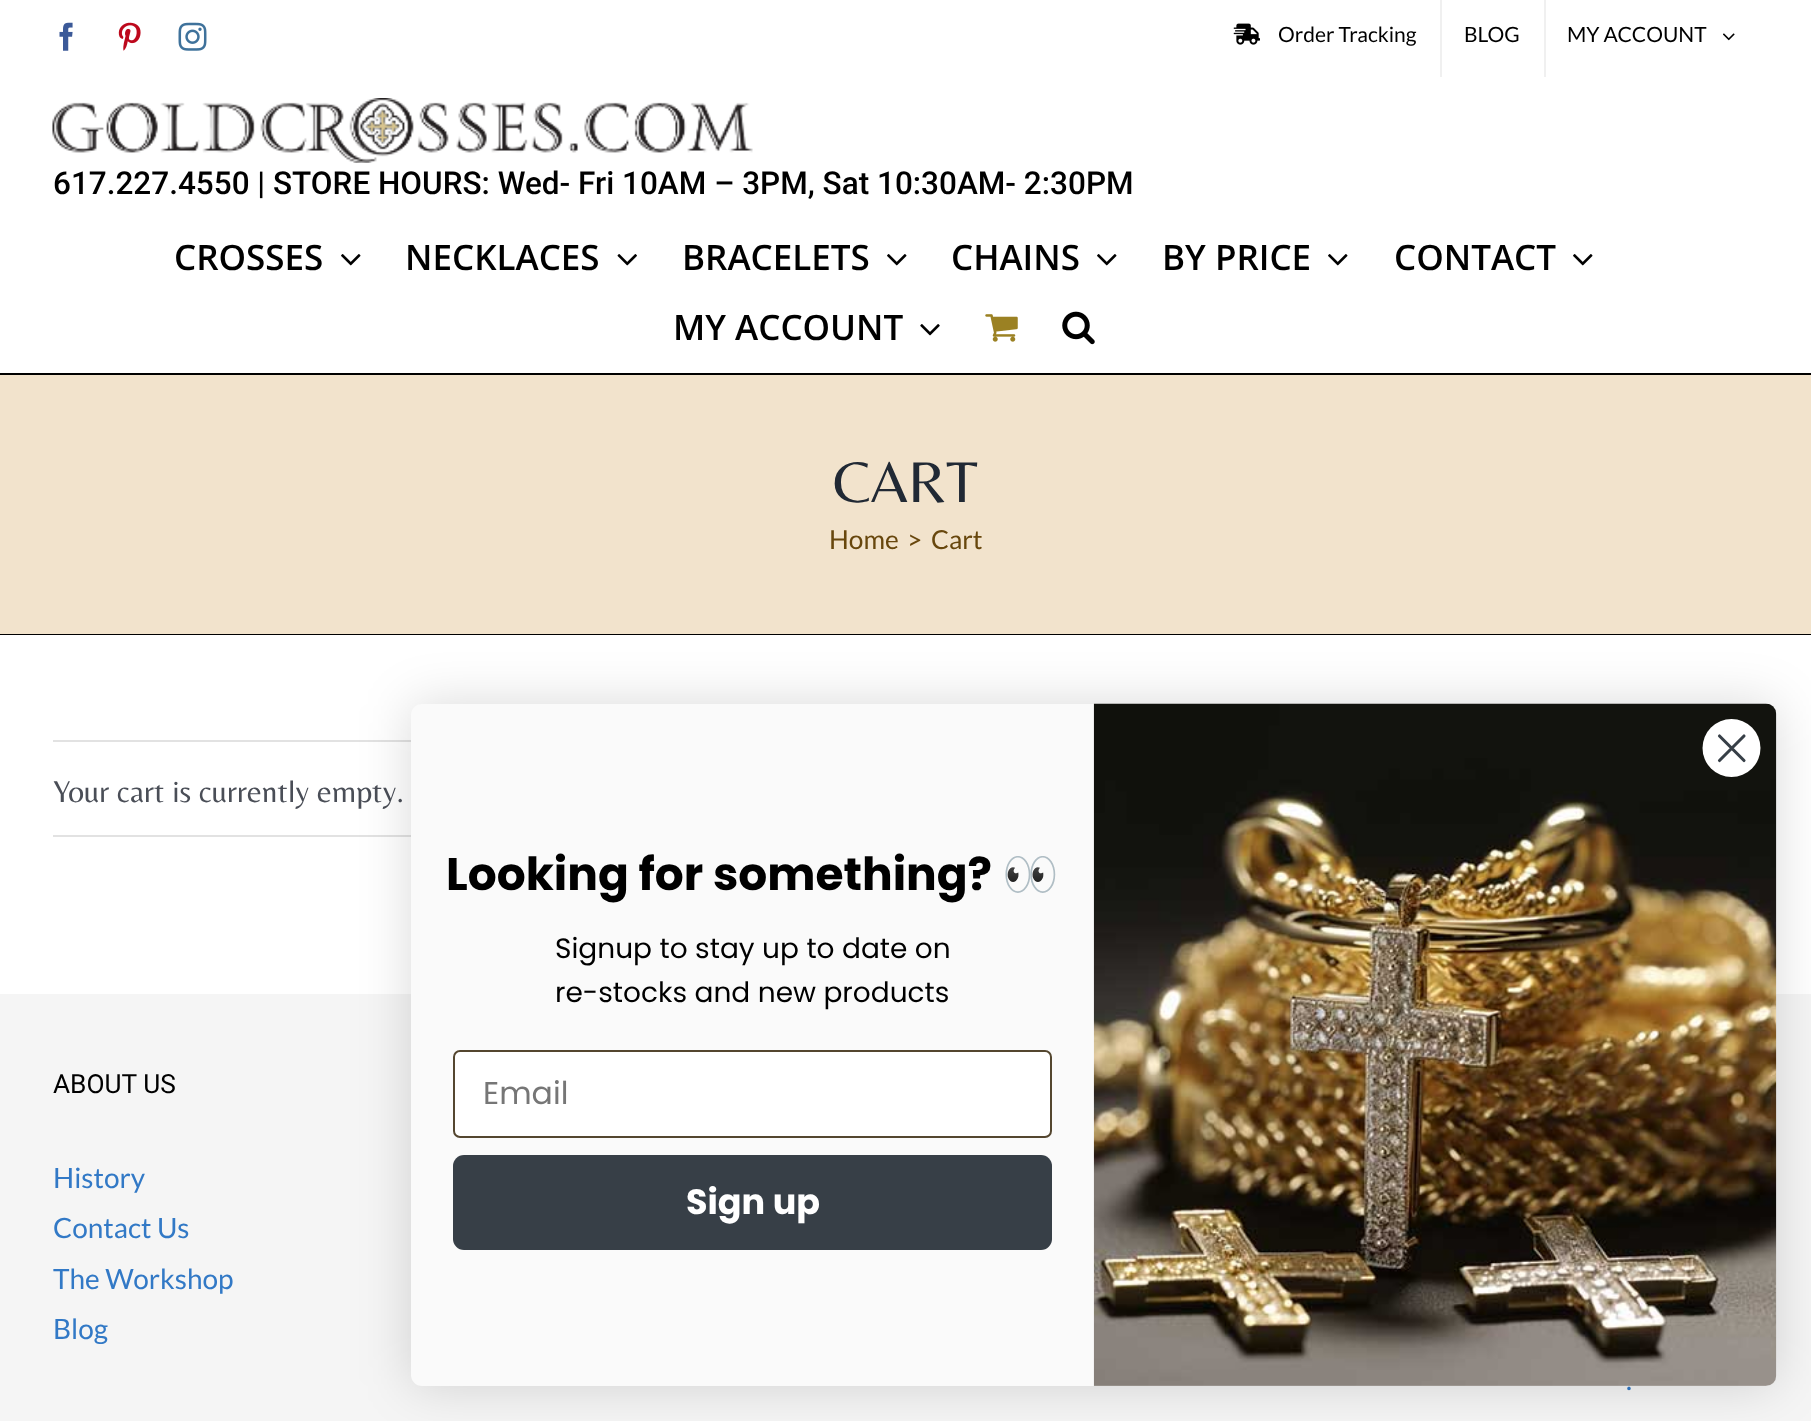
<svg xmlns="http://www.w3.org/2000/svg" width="1811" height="1421">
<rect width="100%" height="100%" fill="#fff"/>
<image x="59" y="22" width="14" height="29" href="media/1.png"/>
<image x="118" y="22" width="23" height="29" href="media/2.png"/>
<image x="178" y="22" width="29" height="29" href="media/3.png"/>
<image x="1233" y="23" width="27" height="22" href="media/4.png"/>
<text x="1278" y="42" style="font-family:Lato;font-size:21px;fill:#000">Order Tracking</text>
<rect x="1440" width="2" height="77" fill="#f0f0f0"/>
<text x="1464" y="42" style="font-family:Lato;font-size:21px;fill:#000">BLOG</text>
<rect x="1544" width="2" height="77" fill="#f0f0f0"/>
<text x="1567" y="42" style="font-family:Lato;font-size:21px;fill:#000">MY ACCOUNT</text>
<image x="1723" y="33" width="12" height="8" href="media/5.png"/>
<image x="52" y="98" width="701" height="65" href="media/6.png"/>
<text x="53" y="194" style="font-family:Roboto;font-size:31.5px;font-weight:500;fill:#000">617.227.4550 | STORE HOURS: Wed- Fri 10AM – 3PM, Sat 10:30AM- 2:30PM</text>
<text x="174" y="270" style="font-family:Open Sans;font-size:35px;font-weight:600;fill:#000">CROSSES</text>
<image x="341" y="254" width="20" height="12" href="media/7.png"/>
<text x="405" y="270" style="font-family:Open Sans;font-size:35px;font-weight:600;fill:#000">NECKLACES</text>
<image x="617" y="254" width="20" height="12" href="media/8.png"/>
<text x="682" y="270" style="font-family:Open Sans;font-size:35px;font-weight:600;fill:#000">BRACELETS</text>
<image x="887" y="254" width="20" height="12" href="media/7.png"/>
<text x="951" y="270" style="font-family:Open Sans;font-size:35px;font-weight:600;fill:#000">CHAINS</text>
<image x="1097" y="254" width="20" height="12" href="media/7.png"/>
<text x="1162" y="270" style="font-family:Open Sans;font-size:35px;font-weight:600;fill:#000">BY PRICE</text>
<image x="1328" y="254" width="20" height="12" href="media/7.png"/>
<text x="1394" y="270" style="font-family:Open Sans;font-size:35px;font-weight:600;fill:#000">CONTACT</text>
<image x="1573" y="254" width="20" height="12" href="media/7.png"/>
<text x="673" y="340" style="font-family:Open Sans;font-size:35px;font-weight:600;fill:#000">MY ACCOUNT</text>
<image x="920" y="324" width="20" height="12" href="media/9.png"/>
<image x="985" y="314" width="33" height="28" href="media/10.png"/>
<image x="1062" y="311" width="33" height="34" href="media/11.png"/>
<rect y="375" width="1811" height="259" fill="#f2e3cc"/>
<rect y="373" width="1811" height="2" fill="#000"/>
<rect y="634" width="1811" height="1" fill="#000"/>
<text x="833" y="502" style="font-family:Belleza;font-size:59.5px;fill:#212934">CART</text>
<text x="829" y="549" style="font-family:Lato;font-size:26.25px;fill:#68470d">Home</text>
<text x="907" y="549" style="font-family:Lato;font-size:26.25px;fill:#68470d">&gt;</text>
<text x="931" y="549" style="font-family:Lato;font-size:26.25px;fill:#68470d">Cart</text>
<rect x="53" y="740" width="358" height="2" fill="#e2e2e2"/>
<rect x="53" y="835" width="358" height="2" fill="#e2e2e2"/>
<text x="53" y="802" style="font-family:Belleza;font-size:31.5px;fill:#4a4e57">Your cart is currently empty.</text>
<rect y="994" width="1811" height="427" fill="#f5f5f5"/>
<text x="53" y="1093" style="font-family:Roboto;font-size:26.25px;fill:#000">ABOUT US</text>
<text x="53" y="1188" style="font-family:Lato;font-size:28px;fill:#3279c6">History</text>
<text x="53" y="1238" style="font-family:Lato;font-size:28px;fill:#3279c6">Contact Us</text>
<text x="53" y="1289" style="font-family:Lato;font-size:28px;fill:#3279c6">The Workshop</text>
<text x="53" y="1339" style="font-family:Lato;font-size:28px;fill:#3279c6">Blog</text>
<text x="1626" y="1390" style="font-family:Lato;font-size:28px;fill:#3279c6">.</text>
<rect x="411" y="704" width="1365" height="682" rx="11" fill="#00000026" filter="blur(26px)"/>
<rect x="411" y="704" width="1365" height="682" rx="11" fill="#fafafa"/>
<image x="1093" y="703" width="684" height="683" href="media/12.png"/>
<circle cx="1731.5" cy="748" r="29" fill="#fff"/>
<path d="M1719.5 736l24.5 24.5m-24.5 0l24.5-24.5z" fill="none" stroke="#373f47" stroke-width="3.1" stroke-linecap="round" stroke-linejoin="round"/>
<text x="446" y="890" style="font-family:Poppins;font-size:45.5px;font-weight:bold;fill:#000">Looking for something?</text>
<text x="1002" y="890" style="font-family:Noto Color Emoji;font-size:45.5px;font-weight:bold;fill:#000">👀</text>
<text x="555" y="958" style="font-family:Poppins;font-size:28px;fill:#000">Signup to stay up to date on</text>
<text x="555" y="1002" style="font-family:Poppins;font-size:28px;fill:#000">re-stocks and new products</text>
<rect x="454" y="1051" width="597" height="86" rx="6" fill="#fff" stroke="#54462f" stroke-width="2"/>
<text x="483" y="1104" style="font-family:Poppins;font-size:31.5px;fill:#767676">Email</text>
<rect x="453" y="1155" width="599" height="95" rx="11" fill="#373f47"/>
<text x="686" y="1214" style="font-family:Poppins;font-size:35px;font-weight:bold;fill:#fff">Sign up</text>
</svg>
